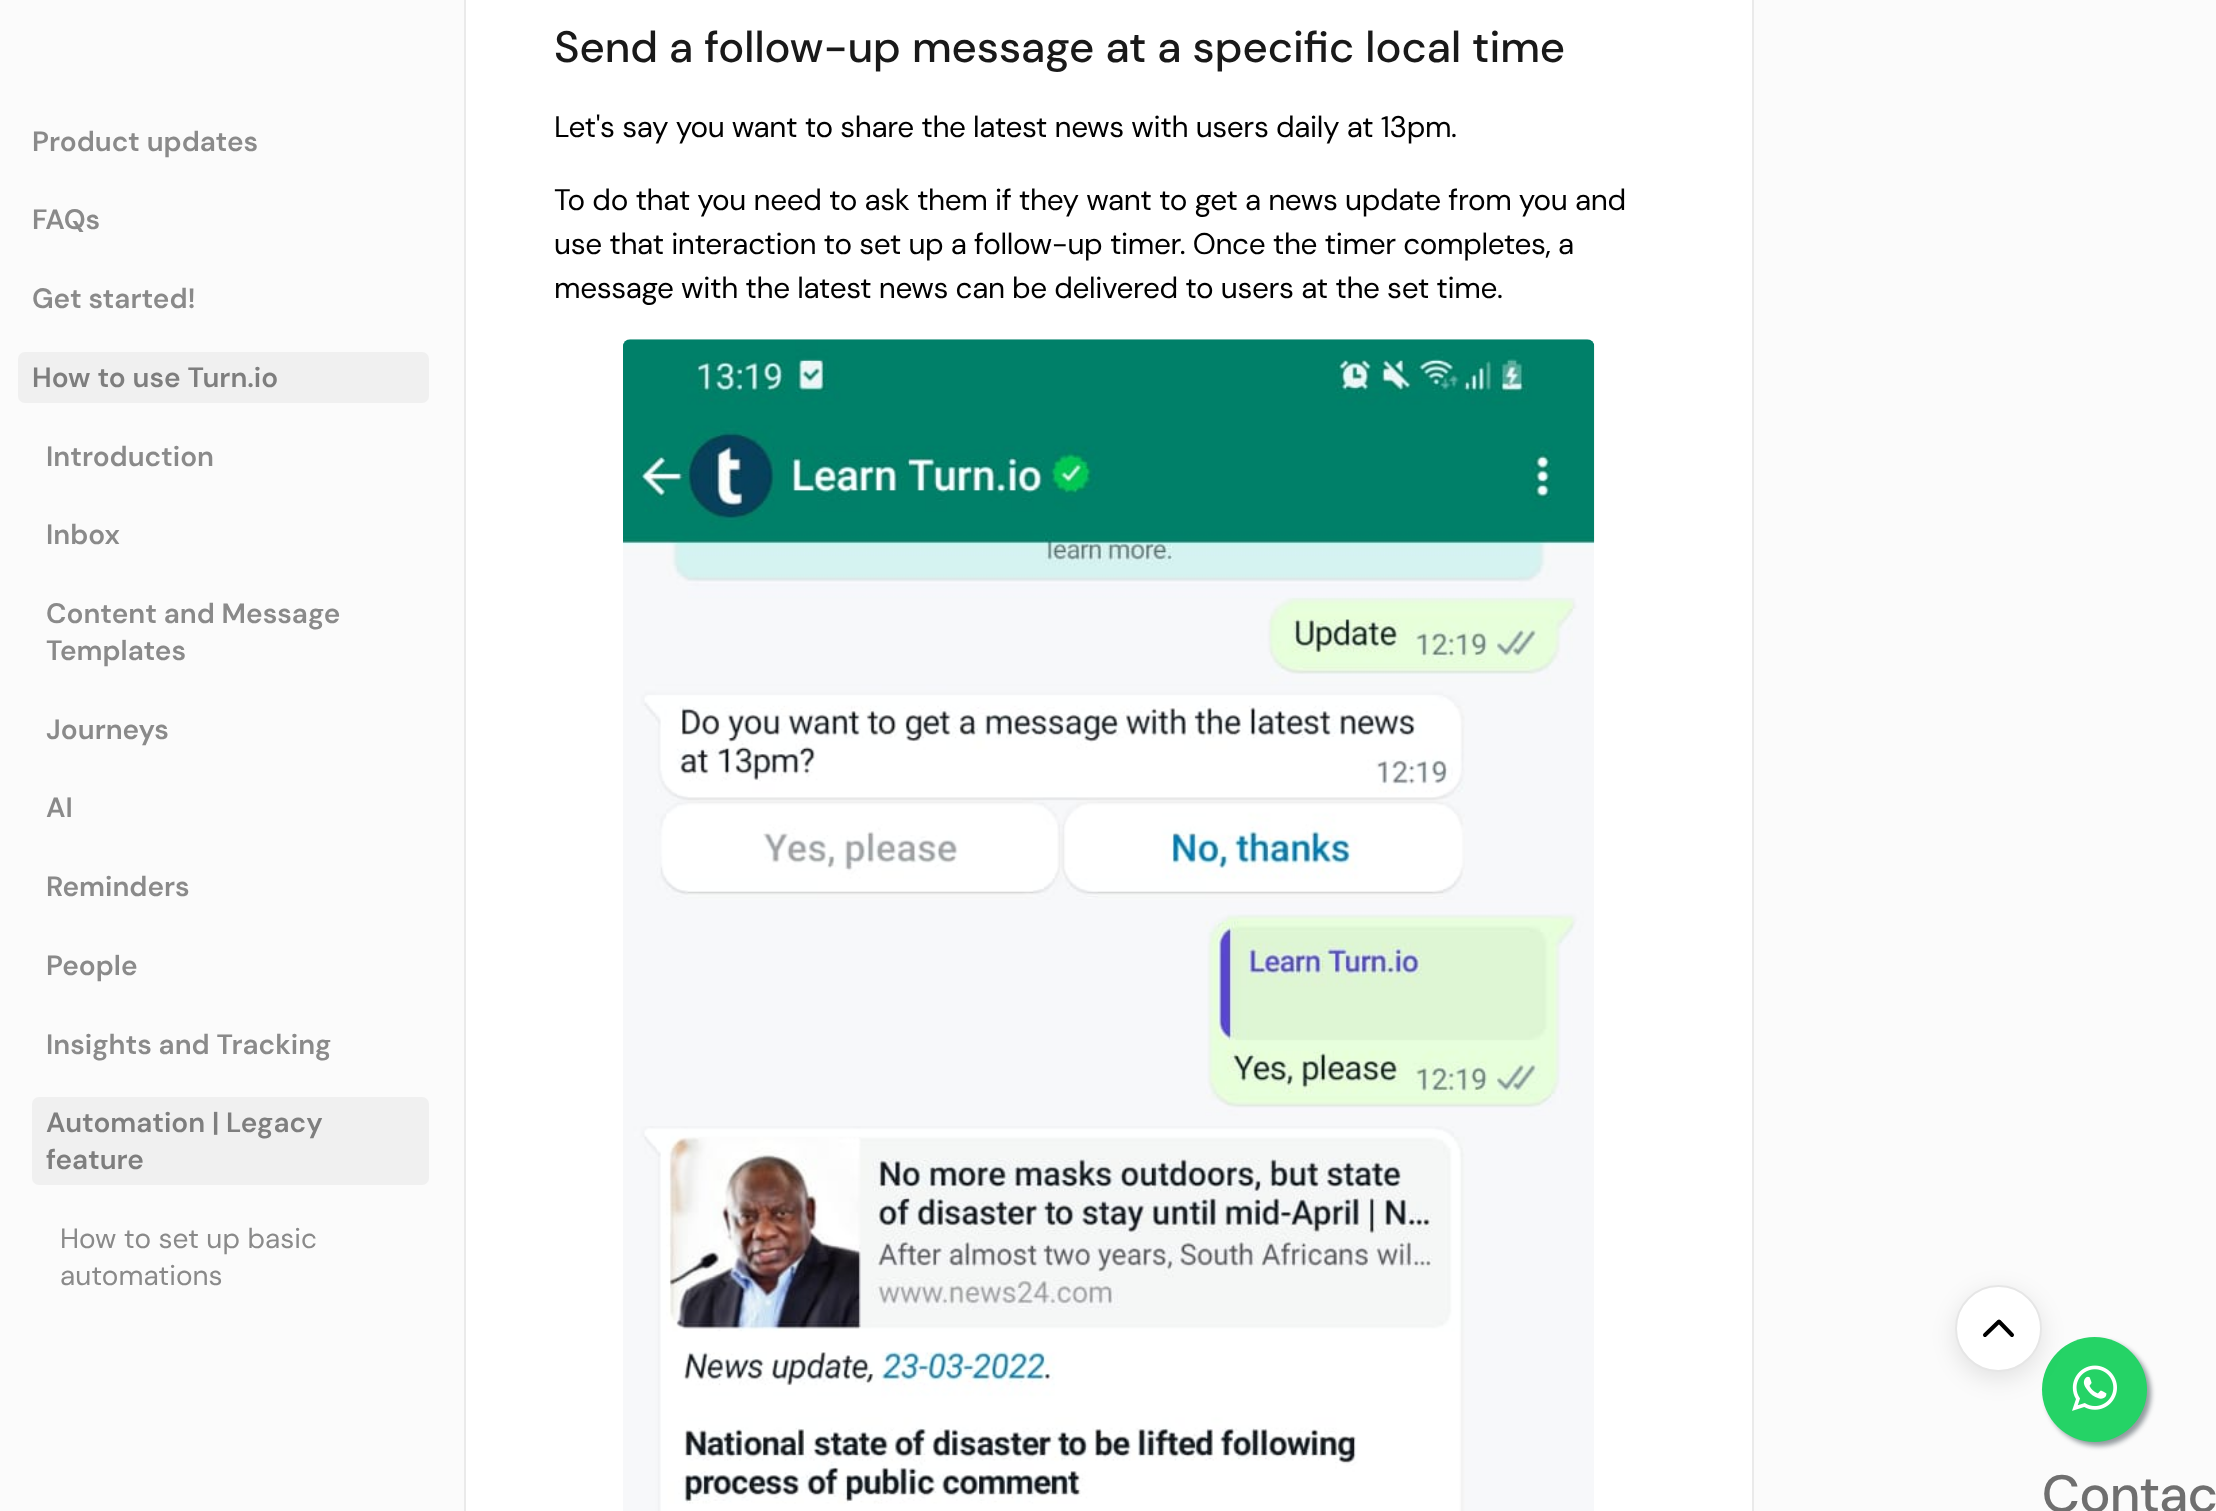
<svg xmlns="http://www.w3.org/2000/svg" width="2216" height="1511">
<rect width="100%" height="100%" fill="#fbfbfb"/>
<text x="32" y="151" style="font-family:DM Sans;font-size:28px;font-weight:600;fill:#8a8a8a">Product updates</text>
<text x="32" y="229" style="font-family:DM Sans;font-size:28px;font-weight:600;fill:#8a8a8a">FAQs</text>
<text x="32" y="308" style="font-family:DM Sans;font-size:28px;font-weight:600;fill:#8a8a8a">Get started!</text>
<rect x="18" y="352" width="411" height="51" rx="7" fill="#f0f0f0"/>
<text x="32" y="387" style="font-family:DM Sans;font-size:28px;font-weight:600;fill:#7e7e7e">How to use Turn.io</text>
<text x="46" y="466" style="font-family:DM Sans;font-size:28px;font-weight:600;fill:#8a8a8a">Introduction</text>
<text x="46" y="544" style="font-family:DM Sans;font-size:28px;font-weight:600;fill:#8a8a8a">Inbox</text>
<text x="46" y="623" style="font-family:DM Sans;font-size:28px;font-weight:600;fill:#8a8a8a">Content and Message</text>
<text x="46" y="660" style="font-family:DM Sans;font-size:28px;font-weight:600;fill:#8a8a8a">Templates</text>
<text x="46" y="739" style="font-family:DM Sans;font-size:28px;font-weight:600;fill:#8a8a8a">Journeys</text>
<text x="46" y="817" style="font-family:DM Sans;font-size:28px;font-weight:600;fill:#8a8a8a">AI</text>
<text x="46" y="896" style="font-family:DM Sans;font-size:28px;font-weight:600;fill:#8a8a8a">Reminders</text>
<text x="46" y="975" style="font-family:DM Sans;font-size:28px;font-weight:600;fill:#8a8a8a">People</text>
<text x="46" y="1054" style="font-family:DM Sans;font-size:28px;font-weight:600;fill:#8a8a8a">Insights and Tracking</text>
<rect x="32" y="1097" width="397" height="88" rx="7" fill="#f0f0f0"/>
<text x="46" y="1132" style="font-family:DM Sans;font-size:28px;font-weight:600;fill:#7e7e7e">Automation | Legacy</text>
<text x="46" y="1169" style="font-family:DM Sans;font-size:28px;font-weight:600;fill:#7e7e7e">feature</text>
<text x="60" y="1248" style="font-family:'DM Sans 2';font-size:28px;fill:#8a8a8a">How to set up basic</text>
<text x="60" y="1285" style="font-family:'DM Sans 2';font-size:28px;fill:#8a8a8a">automations</text>
<rect x="465" y="-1" width="1288" height="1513" fill="#fff" stroke="#eaeaea" stroke-width="2"/>
<text x="554" y="62" style="font-family:DM Sans;font-size:43.75px;font-weight:500;fill:#191919">Send a follow-up message at a specific local time</text>
<text x="554" y="137" style="font-family:DM Sans;font-size:29.75px;letter-spacing:-0.4px;fill:#000">Let's say you want to share the latest news with users daily at 13pm.</text>
<text x="554" y="210" style="font-family:DM Sans;font-size:29.75px;letter-spacing:-0.4px;fill:#000">To do that you need to ask them if they want to get a news update from you and</text>
<text x="554" y="254" style="font-family:DM Sans;font-size:29.75px;letter-spacing:-0.4px;fill:#000">use that interaction to set up a follow-up timer. Once the timer completes, a</text>
<text x="554" y="298" style="font-family:DM Sans;font-size:29.75px;letter-spacing:-0.4px;fill:#000">message with the latest news can be delivered to users at the set time.</text>
<image x="623" y="339" width="972" height="1172" href="media/1.png"/>
<rect x="2046" y="1341" width="105" height="105" rx="52.5" fill="#929a9e" filter="blur(2.5px)"/>
<circle cx="2094.5" cy="1389.5" r="52.5" fill="#25d366"/>
<image x="2072" y="1365" width="45" height="46" href="media/2.png"/>
<rect x="1955" y="1292" width="87" height="87" rx="43.5" fill="#0000001a" filter="blur(12px)"/>
<circle cx="1998.5" cy="1328.5" r="42.5" fill="#fff" stroke="#e6e6e6" stroke-width="2"/>
<path d="M1985 1335l14-13.5l13 13.5" fill="none" stroke="#000" stroke-width="4" stroke-linecap="round" stroke-linejoin="round"/>
<text x="2042" y="1512" style="font-family:'DM Sans 2';font-size:52.5px;font-weight:500;fill:#6f6f6f">Contac</text>
</svg>
